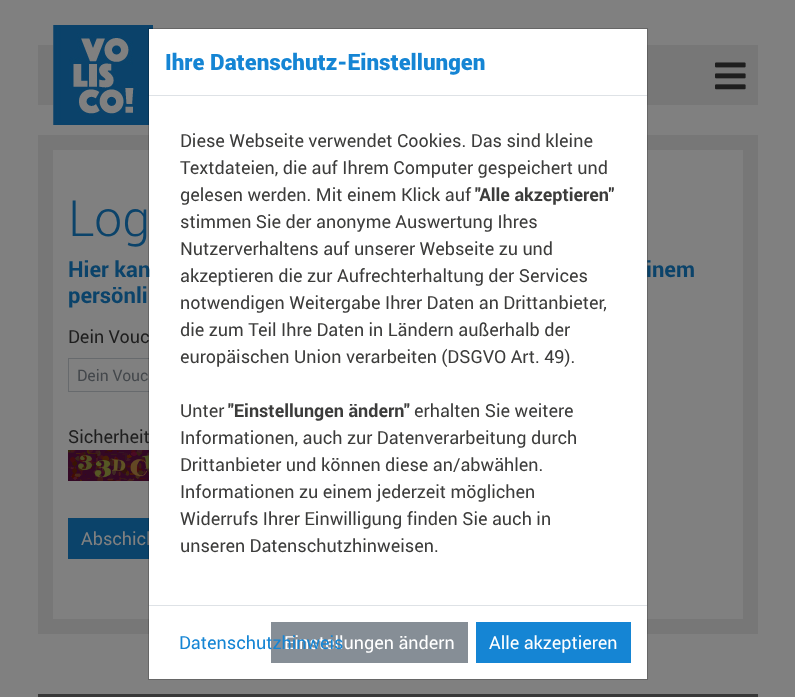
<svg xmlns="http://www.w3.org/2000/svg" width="795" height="697">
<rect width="100%" height="100%" fill="#808080"/>
<rect x="38" y="45" width="720" height="60" fill="#777"/>
<image x="53" y="25" width="100" height="100" href="media/1.png"/>
<image x="715" y="62" width="31" height="28" href="media/2.png"/>
<rect x="45.5" y="142.5" width="705" height="484" fill="none" stroke="#777" stroke-width="15"/>
<rect x="68.5" y="358.5" width="321" height="33" fill="none" stroke="#676a6d"/>
<rect x="68" y="518" width="81" height="41" fill="#0b436a"/>
<text x="81" y="545" style="font-family:Roboto;font-size:18px;fill:#808080">Abschick</text>
<rect x="149" y="29" width="498" height="650" fill="#fff"/>
<text x="68" y="277" style="font-family:Roboto;font-size:22px;font-weight:bold;fill:#0b436a">Hier kan</text>
<text x="646" y="277" style="font-family:Roboto;font-size:22px;font-weight:bold;fill:#0b436a">inem</text>
<text x="68" y="343" style="font-family:Roboto;font-size:18px;fill:#1e1e1e">Dein Vouc</text>
<text x="68" y="443" style="font-family:Roboto;font-size:18px;fill:#1e1e1e">Sicherheit</text>
<image x="68" y="450" width="81" height="31" href="media/3.png"/>
<rect x="148.5" y="28.5" width="499" height="651" fill="none" stroke="#00000033"/>
<rect x="149" y="95" width="498" height="1" fill="#dee2e6"/>
<text x="165" y="70" style="font-family:Roboto;font-size:22.5px;font-weight:900;fill:#1585d4">Ihre Datenschutz-Einstellungen</text>
<text x="180" y="147" style="font-family:Roboto;font-size:18px;fill:#3c3c3b">Diese Webseite verwendet Cookies. Das sind kleine</text>
<text x="180" y="174" style="font-family:Roboto;font-size:18px;fill:#3c3c3b">Textdateien, die auf Ihrem Computer gespeichert und</text>
<text x="180" y="201" style="font-family:Roboto;font-size:18px;fill:#3c3c3b">gelesen werden. Mit einem Klick auf</text>
<text x="475" y="201" style="font-family:Roboto;font-size:18px;font-weight:bold;fill:#3c3c3b">"Alle akzeptieren"</text>
<text x="180" y="228" style="font-family:Roboto;font-size:18px;fill:#3c3c3b">stimmen Sie der anonyme Auswertung Ihres</text>
<text x="180" y="255" style="font-family:Roboto;font-size:18px;fill:#3c3c3b">Nutzerverhaltens auf unserer Webseite zu und</text>
<text x="180" y="282" style="font-family:Roboto;font-size:18px;fill:#3c3c3b">akzeptieren die zur Aufrechterhaltung der Services</text>
<text x="180" y="309" style="font-family:Roboto;font-size:18px;fill:#3c3c3b">notwendigen Weitergabe Ihrer Daten an Drittanbieter,</text>
<text x="180" y="336" style="font-family:Roboto;font-size:18px;fill:#3c3c3b">die zum Teil Ihre Daten in Ländern außerhalb der</text>
<text x="180" y="363" style="font-family:Roboto;font-size:18px;fill:#3c3c3b">europäischen Union verarbeiten (DSGVO Art. 49).</text>
<text x="180" y="417" style="font-family:Roboto;font-size:18px;fill:#3c3c3b">Unter</text>
<text x="228" y="417" style="font-family:Roboto;font-size:18px;font-weight:bold;fill:#3c3c3b">"Einstellungen ändern"</text>
<text x="414" y="417" style="font-family:Roboto;font-size:18px;fill:#3c3c3b">erhalten Sie weitere</text>
<text x="180" y="444" style="font-family:Roboto;font-size:18px;fill:#3c3c3b">Informationen, auch zur Datenverarbeitung durch</text>
<text x="180" y="471" style="font-family:Roboto;font-size:18px;fill:#3c3c3b">Drittanbieter und können diese an/abwählen.</text>
<text x="180" y="498" style="font-family:Roboto;font-size:18px;fill:#3c3c3b">Informationen zu einem jederzeit möglichen</text>
<text x="180" y="525" style="font-family:Roboto;font-size:18px;fill:#3c3c3b">Widerrufs Ihrer Einwilligung finden Sie auch in</text>
<text x="180" y="552" style="font-family:Roboto;font-size:18px;fill:#3c3c3b">unseren Datenschutzhinweisen.</text>
<rect x="149" y="605" width="498" height="1" fill="#dee2e6"/>
<rect x="271" y="622" width="197" height="41" fill="#868e96"/>
<text x="284" y="649" style="font-family:Roboto;font-size:18px;fill:#fff">Einstellungen ändern</text>
<text x="179" y="649" style="font-family:Roboto;font-size:18px;fill:#1585d4">Datenschutzhinweis</text>
<rect x="476" y="622" width="155" height="41" fill="#1585d4"/>
<text x="489" y="649" style="font-family:Roboto;font-size:18px;fill:#fff">Alle akzeptieren</text>
<text x="68" y="236" style="font-family:Roboto;font-size:50px;font-weight:300;fill:#0b436a">Log</text>
<text x="68" y="303" style="font-family:Roboto;font-size:22px;font-weight:bold;fill:#0b436a">persönli</text>
<text x="77" y="381" style="font-family:Roboto;font-size:15.75px;fill:#43474b">Dein Vouc</text>
<rect x="38" y="694" width="720" height="3" fill="#383838"/>
</svg>
